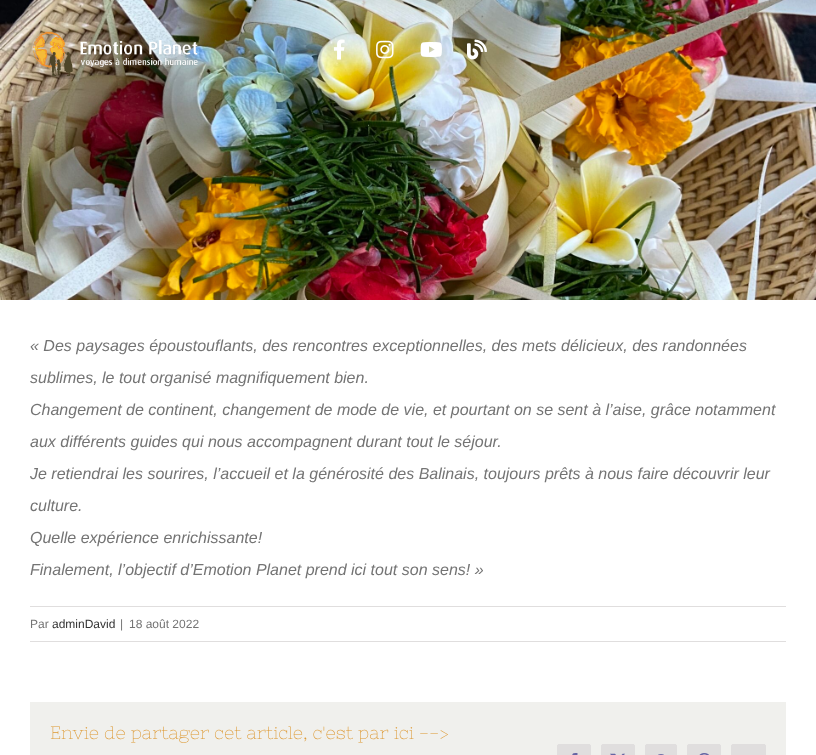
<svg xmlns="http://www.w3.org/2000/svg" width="816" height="755">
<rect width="100%" height="100%" fill="#fff"/>
<image x="0" y="0" width="816" height="300" href="media/1.png"/>
<image x="33" y="31" width="165" height="48" href="media/2.png"/>
<image x="333" y="39" width="12" height="21" href="media/3.png"/>
<image x="376" y="40" width="18" height="19" href="media/4.png"/>
<image x="420" y="42" width="22" height="15" href="media/5.png"/>
<image x="467" y="39" width="20" height="21" href="media/6.png"/>
<text x="30" y="351" style="font-family:Liberation Sans;font-size:16px;font-style:italic;fill:#747474">« Des paysages époustouflants, des rencontres exceptionnelles, des mets délicieux, des randonnées</text>
<text x="30" y="383" style="font-family:Liberation Sans;font-size:16px;font-style:italic;fill:#747474">sublimes, le tout organisé magnifiquement bien.</text>
<text x="30" y="415" style="font-family:Liberation Sans;font-size:16px;font-style:italic;fill:#747474">Changement de continent, changement de mode de vie, et pourtant on se sent à l’aise, grâce notamment</text>
<text x="30" y="447" style="font-family:Liberation Sans;font-size:16px;font-style:italic;fill:#747474">aux différents guides qui nous accompagnent durant tout le séjour.</text>
<text x="30" y="479" style="font-family:Liberation Sans;font-size:16px;font-style:italic;fill:#747474">Je retiendrai les sourires, l’accueil et la générosité des Balinais, toujours prêts à nous faire découvrir leur</text>
<text x="30" y="511" style="font-family:Liberation Sans;font-size:16px;font-style:italic;fill:#747474">culture.</text>
<text x="30" y="543" style="font-family:Liberation Sans;font-size:16px;font-style:italic;fill:#747474">Quelle expérience enrichissante!</text>
<text x="30" y="575" style="font-family:Liberation Sans;font-size:16px;font-style:italic;fill:#747474">Finalement, l’objectif d’Emotion Planet prend ici tout son sens! »</text>
<rect x="30" y="606" width="756" height="1" fill="#e0dede"/>
<rect x="30" y="641" width="756" height="1" fill="#e0dede"/>
<text x="30" y="628" style="font-family:Liberation Sans;font-size:12px;fill:#747474">Par</text>
<text x="52" y="628" style="font-family:Liberation Sans;font-size:12px;fill:#333">adminDavid</text>
<text x="120" y="628" style="font-family:Liberation Sans;font-size:12px;fill:#747474">|</text>
<text x="129" y="628" style="font-family:Liberation Sans;font-size:12px;fill:#747474">18 août 2022</text>
<rect x="30" y="702" width="756" height="53" fill="#f0f0ed"/>
<text x="50" y="739" style="font-family:Nixie One;font-size:18px;fill:#d93">Envie de partager cet article, c'est par ici --&gt;</text>
<rect x="557.5" y="744.5" width="33" height="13" rx="1.5" fill="#e0dede" stroke="#e0dede"/>
<image x="572" y="753" width="6" height="2" href="media/7.png"/>
<rect x="601.5" y="744.5" width="33" height="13" rx="1.5" fill="#e0dede" stroke="#e0dede"/>
<image x="610" y="753" width="15" height="2" href="media/8.png"/>
<rect x="645.5" y="744.5" width="31" height="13" rx="1.5" fill="#e0dede" stroke="#e0dede"/>
<image x="658" y="754" width="6" height="1" href="media/9.png"/>
<rect x="687.5" y="744.5" width="33" height="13" rx="1.5" fill="#e0dede" stroke="#e0dede"/>
<image x="699" y="753" width="10" height="2" href="media/10.png"/>
<rect x="731.5" y="744.5" width="34" height="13" rx="1.5" fill="#e0dede" stroke="#e0dede"/>
</svg>
